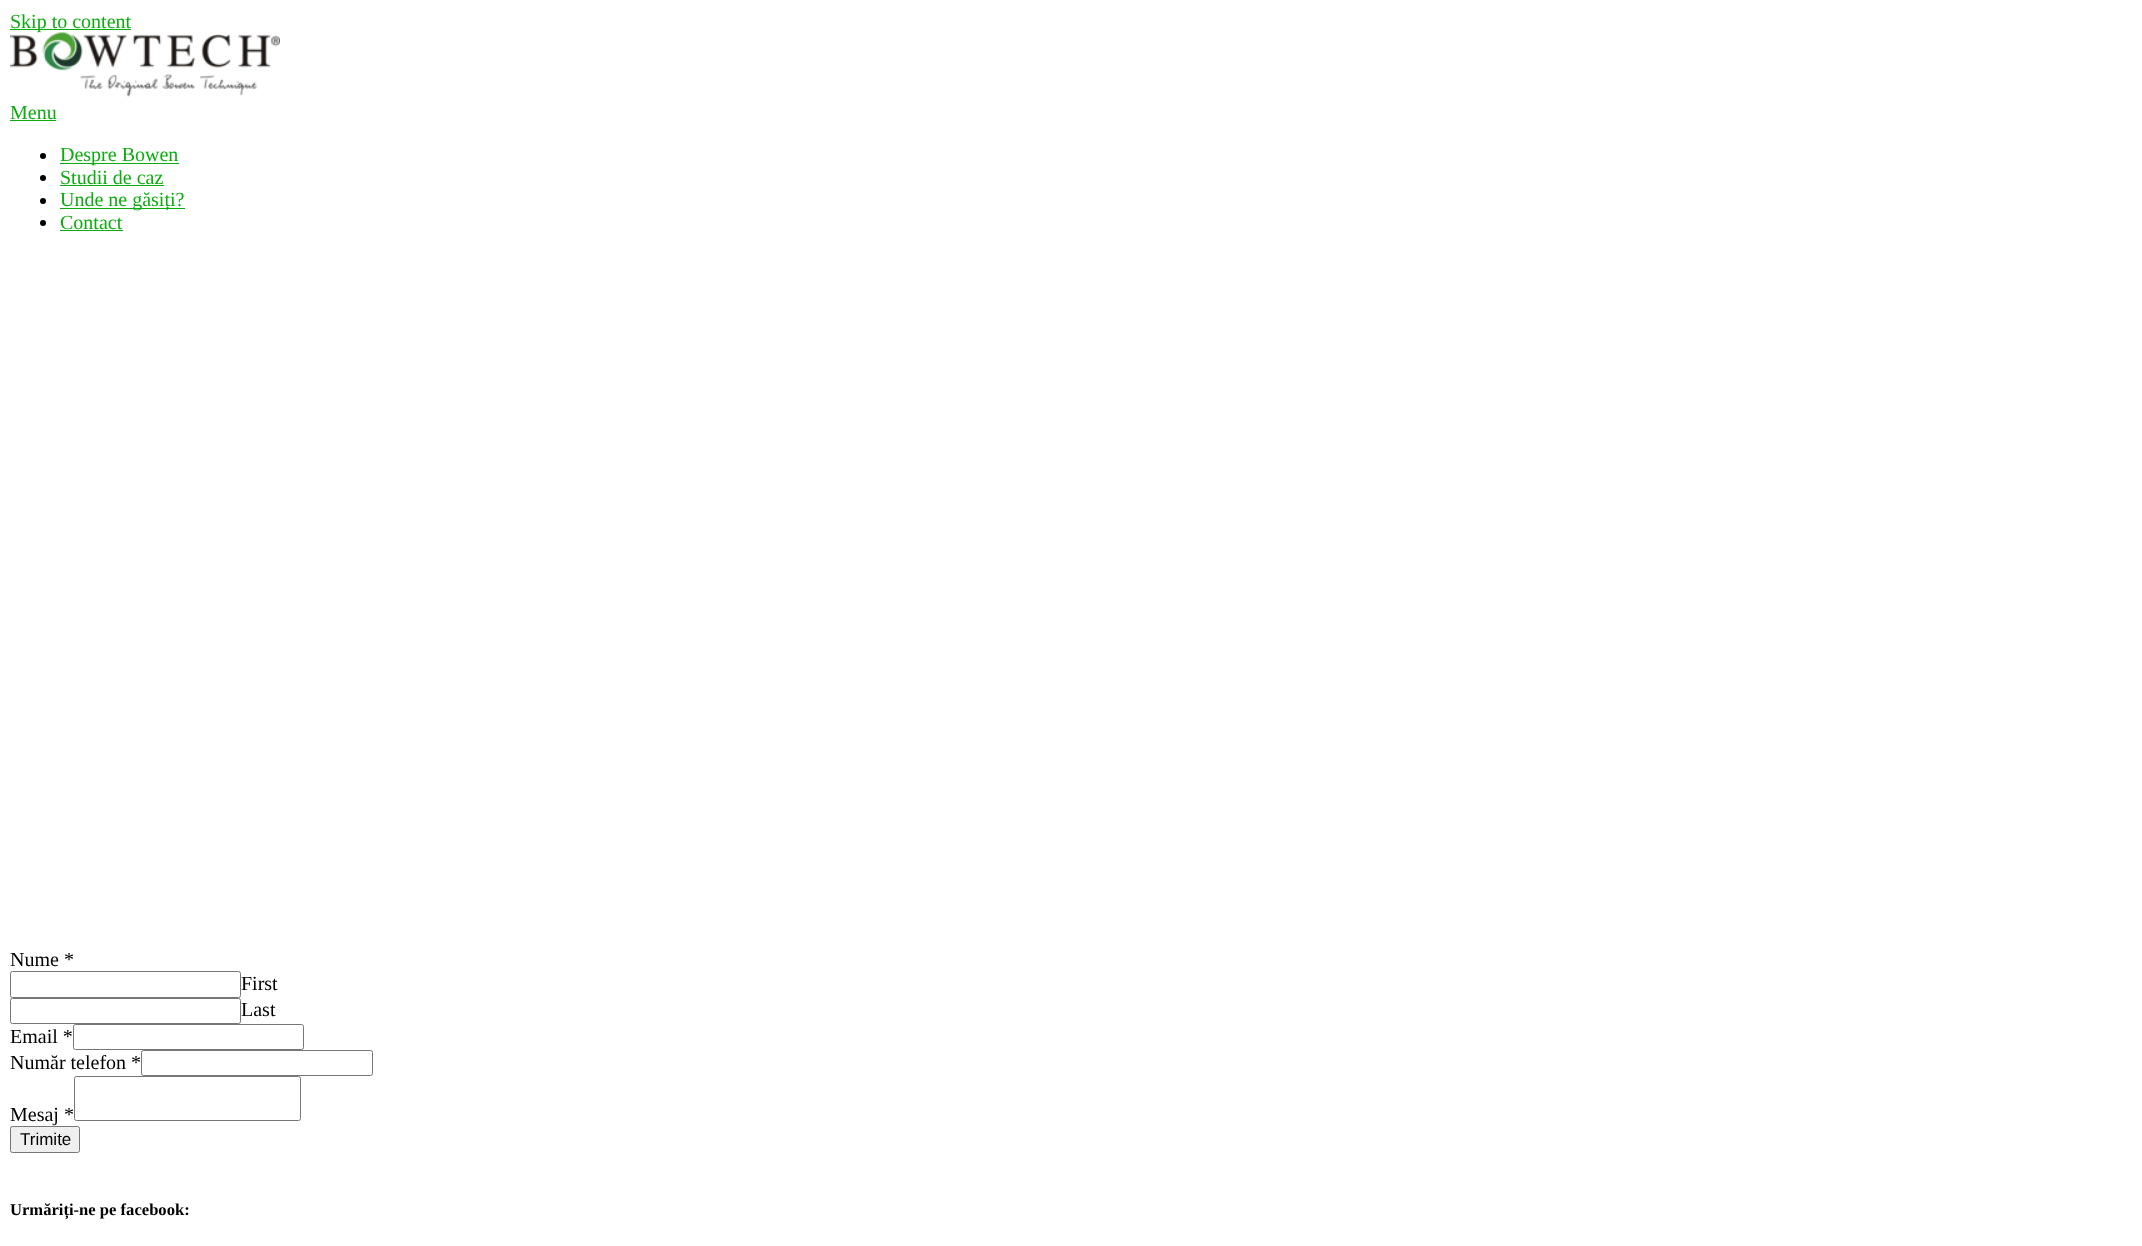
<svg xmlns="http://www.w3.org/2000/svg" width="2142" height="1246">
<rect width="100%" height="100%" fill="#fff"/>
<rect x="10" y="29" width="121" height="1" fill="#0aad0d"/>
<text x="10" y="28" style="font-family:Liberation Serif;font-size:20px;fill:#0aad0d">Skip to content</text>
<image x="10" y="32" width="270" height="65" href="media/1.png"/>
<text x="10" y="119" style="font-family:Liberation Serif;font-size:20px;fill:#0aad0d">Menu</text>
<rect x="10" y="120" width="46" height="1" fill="#0aad0d"/>
<circle cx="43" cy="156" r="3" fill="#000"/>
<rect x="60" y="163" width="119" height="1" fill="#0aad0d"/>
<text x="60" y="161" style="font-family:Liberation Serif;font-size:20px;fill:#0aad0d">Despre Bowen</text>
<circle cx="43" cy="178" r="3" fill="#000"/>
<text x="60" y="184" style="font-family:Liberation Serif;font-size:20px;fill:#0aad0d">Studii de caz</text>
<rect x="60" y="185" width="104" height="1" fill="#0aad0d"/>
<circle cx="43" cy="201" r="3" fill="#000"/>
<rect x="60" y="208" width="125" height="1" fill="#0aad0d"/>
<text x="60" y="206" style="font-family:Liberation Serif;font-size:20px;fill:#0aad0d">Unde ne găsiți?</text>
<circle cx="43" cy="223" r="3" fill="#000"/>
<text x="60" y="229" style="font-family:Liberation Serif;font-size:20px;fill:#0aad0d">Contact</text>
<rect x="60" y="230" width="63" height="1" fill="#0aad0d"/>
<text x="10" y="966" style="font-family:Liberation Serif;font-size:20px;fill:#000">Nume *</text>
<rect x="10.5" y="971.5" width="230" height="26" rx="2" fill="none" stroke="#767676"/>
<text x="241" y="990" style="font-family:Liberation Serif;font-size:20px;fill:#000">First</text>
<rect x="10.5" y="998.5" width="230" height="25" rx="2" fill="none" stroke="#767676"/>
<text x="241" y="1016" style="font-family:Liberation Serif;font-size:20px;fill:#000">Last</text>
<text x="10" y="1043" style="font-family:Liberation Serif;font-size:20px;fill:#000">Email *</text>
<rect x="73.5" y="1024.5" width="230" height="25" rx="2" fill="none" stroke="#767676"/>
<text x="10" y="1069" style="font-family:Liberation Serif;font-size:20px;fill:#000">Număr telefon *</text>
<rect x="141.5" y="1050.5" width="231" height="25" rx="2" fill="none" stroke="#767676"/>
<text x="10" y="1121" style="font-family:Liberation Serif;font-size:20px;fill:#000">Mesaj *</text>
<rect x="74.5" y="1076.5" width="226" height="44" rx="2" fill="none" stroke="#767676"/>
<rect x="10.5" y="1126.5" width="69" height="26" rx="2" fill="#efefef" stroke="#767676"/>
<text x="20" y="1145" style="font-family:Liberation Sans;font-size:17px;fill:#000">Trimite</text>
<text x="10" y="1215" style="font-family:Liberation Serif;font-size:16.6px;font-weight:bold;fill:#000">Urmăriți-ne pe facebook:</text>
</svg>
